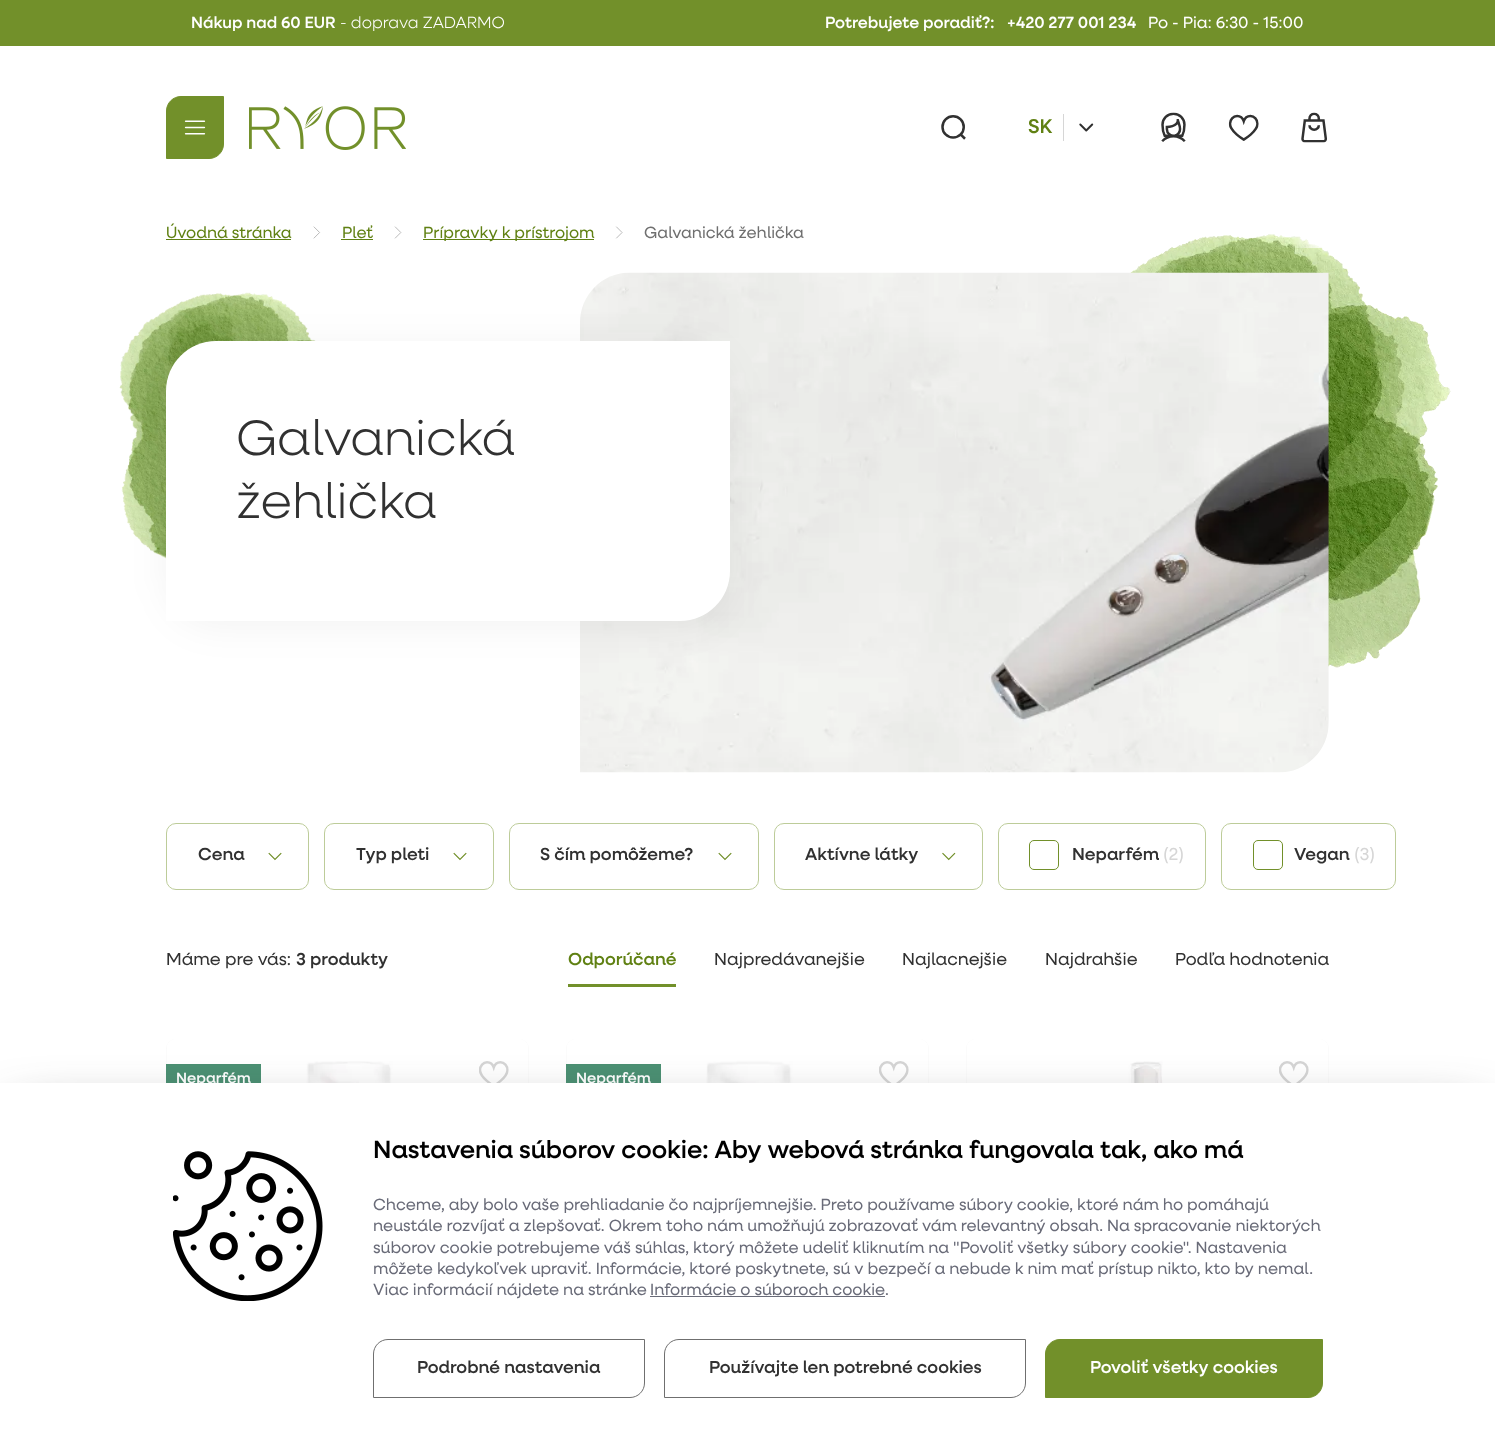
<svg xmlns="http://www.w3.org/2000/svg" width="1495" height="1447">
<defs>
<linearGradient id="g1" gradientUnits="userSpaceOnUse" x1="1291" y1="233" x2="1329" y2="233"><stop offset="0" stop-color="#fff" stop-opacity="0"/><stop offset="1" stop-color="#fff"/></linearGradient>
</defs>
<rect width="100%" height="100%" fill="#fff"/>
<rect width="1495" height="46" fill="#72902a"/>
<text x="191" y="28" style="font-family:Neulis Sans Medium;font-size:16.25px;font-weight:500;fill:#fff">Nákup nad 60 EUR</text>
<text x="340" y="28" style="font-family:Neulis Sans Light;font-size:16.25px;font-weight:300;fill:#fff">- doprava ZADARMO</text>
<text x="825" y="28" style="font-family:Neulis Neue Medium;font-size:16.25px;font-weight:500;fill:#fff">Potrebujete poradiť?:</text>
<text x="1007" y="28" style="font-family:Neulis Neue Medium;font-size:16.25px;font-weight:500;fill:#fff">+420 277 001 234</text>
<text x="1148" y="28" style="font-family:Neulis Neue;font-size:16.25px;fill:#fff">Po - Pia: 6:30 - 15:00</text>
<path d="M181 96.5h42.5v47.5c0 8-6.5 14.5-14.5 14.5h-42.5v-47.5c0-8 6.5-14.5 14.5-14.5z" fill="#72902a" stroke="#72902a"/>
<image x="184" y="120" width="22" height="15" href="media/1.png"/>
<image x="249" y="106" width="157" height="44" href="media/2.png"/>
<image x="941" y="115" width="25" height="25" href="media/3.png"/>
<rect x="1063" y="114" width="1" height="27" fill="#d6d6d6"/>
<text x="1028" y="133" style="font-family:Neulis Neue Medium;font-size:20px;font-weight:500;fill:#608113">SK</text>
<image x="1079" y="123" width="15" height="9" href="media/4.png"/>
<image x="1161" y="112" width="25" height="30" href="media/5.png"/>
<image x="1228" y="114" width="31" height="27" href="media/6.png"/>
<image x="1301" y="112" width="26" height="31" href="media/7.png"/>
<text x="166" y="238" style="font-family:Neulis Neue;font-size:16.25px;fill:#608113">Úvodná stránka</text>
<rect x="166" y="239" width="125" height="1" fill="#608113"/>
<image x="313" y="226" width="8" height="13" href="media/8.png"/>
<text x="342" y="238" style="font-family:Neulis Neue;font-size:16.25px;fill:#608113">Pleť</text>
<rect x="341" y="239" width="32" height="1" fill="#608113"/>
<image x="394" y="226" width="8" height="13" href="media/9.png"/>
<rect x="423" y="239" width="171" height="1" fill="#608113"/>
<text x="423" y="238" style="font-family:Neulis Neue;font-size:16.25px;fill:#608113">Prípravky k prístrojom</text>
<image x="615" y="226" width="8" height="13" href="media/10.png"/>
<text x="644" y="238" style="font-family:Neulis Neue;font-size:16.25px;fill:#6f6f6f">Galvanická žehlička</text>
<image x="1130" y="234" width="321" height="434" href="media/11.png"/>
<rect x="1292" y="236" width="31" height="12" fill="url(#g1)"/>
<image x="119" y="292" width="197" height="267" href="media/12.png"/>
<image x="580" y="272" width="749" height="501" href="media/13.png"/>
<rect x="166" y="346" width="564" height="280" rx="50" fill="#0000000d" filter="blur(19px)"/>
<path d="M216 341h514v230c0 27.5-22.5 50-50 50h-514v-230c0-27.5 22.5-50 50-50z" fill="#fff"/>
<text x="236" y="455" style="font-family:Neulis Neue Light;font-size:50px;font-weight:300;fill:#313131">Galvanická</text>
<text x="236" y="518" style="font-family:Neulis Neue Light;font-size:50px;font-weight:300;fill:#313131">žehlička</text>
<rect x="166.5" y="823.5" width="142" height="66" rx="9.5" fill="none" stroke="#bdcc99"/>
<text x="198" y="860" style="font-family:Neulis Neue Medium;font-size:17.5px;font-weight:500;fill:#313131">Cena</text>
<image x="268" y="852" width="14" height="9" href="media/14.png"/>
<rect x="324.5" y="823.5" width="169" height="66" rx="9.5" fill="none" stroke="#bdcc99"/>
<text x="356" y="860" style="font-family:Neulis Neue Medium;font-size:17.5px;font-weight:500;fill:#313131">Typ pleti</text>
<image x="453" y="852" width="14" height="9" href="media/14.png"/>
<rect x="509.5" y="823.5" width="249" height="66" rx="9.5" fill="none" stroke="#bdcc99"/>
<text x="540" y="860" style="font-family:Neulis Neue Medium;font-size:17.5px;font-weight:500;fill:#313131">S čím pomôžeme?</text>
<image x="718" y="852" width="14" height="9" href="media/14.png"/>
<rect x="774.5" y="823.5" width="208" height="66" rx="9.5" fill="none" stroke="#bdcc99"/>
<text x="805" y="860" style="font-family:Neulis Neue Medium;font-size:17.5px;font-weight:500;fill:#313131">Aktívne látky</text>
<image x="942" y="852" width="14" height="9" href="media/15.png"/>
<rect x="998.5" y="823.5" width="207" height="66" rx="9.5" fill="none" stroke="#bdcc99"/>
<rect x="1029.5" y="840.5" width="29" height="29" rx="4.5" fill="none" stroke="#72902a"/>
<text x="1072" y="860" style="font-family:Neulis Neue Medium;font-size:17.5px;font-weight:500;fill:#313131">Neparfém</text>
<text x="1163" y="860" style="font-family:Neulis Neue;font-size:17.5px;fill:#d6d6d6">(2)</text>
<rect x="1221.5" y="823.5" width="174" height="66" rx="9.5" fill="none" stroke="#bdcc99"/>
<rect x="1253.5" y="840.5" width="29" height="29" rx="4.5" fill="none" stroke="#72902a"/>
<text x="1294" y="860" style="font-family:Neulis Neue Medium;font-size:17.5px;font-weight:500;fill:#313131">Vegan</text>
<text x="1354" y="860" style="font-family:Neulis Neue;font-size:17.5px;fill:#d6d6d6">(3)</text>
<text x="166" y="965" style="font-family:Neulis Neue;font-size:17.5px;fill:#313131">Máme pre vás:</text>
<text x="296" y="965" style="font-family:Neulis Neue Medium;font-size:17.5px;font-weight:500;fill:#313131">3 produkty</text>
<text x="568" y="965" style="font-family:Neulis Neue Medium;font-size:17.5px;font-weight:500;fill:#608113">Odporúčané</text>
<rect x="568" y="984" width="108" height="3" fill="#72902a"/>
<text x="714" y="965" style="font-family:Neulis Neue;font-size:17.5px;fill:#313131">Najpredávanejšie</text>
<text x="902" y="965" style="font-family:Neulis Neue;font-size:17.5px;fill:#313131">Najlacnejšie</text>
<text x="1045" y="965" style="font-family:Neulis Neue;font-size:17.5px;fill:#313131">Najdrahšie</text>
<text x="1175" y="965" style="font-family:Neulis Neue;font-size:17.5px;fill:#313131">Podľa hodnotenia</text>
<rect x="166" y="1039" width="363" height="362" rx="10" fill="#f5f5f5"/>
<image x="166" y="1039" width="363" height="44" href="media/16.png"/>
<rect x="166" y="1064" width="95" height="19" fill="#4b9073"/>
<text x="176" y="1083" style="font-family:Neulis Neue Medium;font-size:15px;font-weight:500;fill:#fff">Neparfém</text>
<image x="479" y="1061" width="30" height="22" href="media/17.png"/>
<rect x="566" y="1039" width="363" height="362" rx="10" fill="#f5f5f5"/>
<image x="566" y="1039" width="363" height="44" href="media/18.png"/>
<rect x="566" y="1064" width="95" height="19" fill="#4b9073"/>
<text x="576" y="1083" style="font-family:Neulis Neue Medium;font-size:15px;font-weight:500;fill:#fff">Neparfém</text>
<image x="879" y="1061" width="30" height="22" href="media/17.png"/>
<rect x="966" y="1039" width="363" height="362" rx="10" fill="#f5f5f5"/>
<image x="966" y="1039" width="363" height="44" href="media/19.png"/>
<image x="1279" y="1061" width="30" height="22" href="media/17.png"/>
<rect x="15" y="1129" width="1465" height="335" fill="#313131" filter="blur(31px)"/>
<rect y="1083" width="1495" height="364" fill="#fff"/>
<image x="173" y="1151" width="150" height="150" href="media/20.png"/>
<text x="373" y="1158" style="font-family:Neulis Neue Medium;font-size:25px;font-weight:500;fill:#000">Nastavenia súborov cookie: Aby webová stránka fungovala tak, ako má</text>
<text x="373" y="1210" style="font-family:Neulis Neue;font-size:16.25px;fill:#696b78">Chceme, aby bolo vaše prehliadanie čo najpríjemnejšie. Preto používame súbory cookie, ktoré nám ho pomáhajú</text>
<text x="373" y="1231" style="font-family:Neulis Neue;font-size:16.25px;fill:#696b78">neustále rozvíjať a zlepšovať. Okrem toho nám umožňujú zobrazovať vám relevantný obsah. Na spracovanie niektorých</text>
<text x="373" y="1253" style="font-family:Neulis Neue;font-size:16.25px;fill:#696b78">súborov cookie potrebujeme váš súhlas, ktorý môžete udeliť kliknutím na "Povoliť všetky súbory cookie". Nastavenia</text>
<text x="373" y="1274" style="font-family:Neulis Neue;font-size:16.25px;fill:#696b78">môžete kedykoľvek upraviť. Informácie, ktoré poskytnete, sú v bezpečí a nebude k nim mať prístup nikto, kto by nemal.</text>
<text x="373" y="1295" style="font-family:Neulis Neue;font-size:16.25px;fill:#696b78">Viac informácií nájdete na stránke</text>
<text x="650" y="1295" style="font-family:Neulis Neue;font-size:16.25px;fill:#696b78">Informácie o súboroch cookie</text>
<rect x="650" y="1296" width="235" height="1" fill="#696b78"/>
<text x="885" y="1295" style="font-family:Neulis Neue;font-size:16.25px;fill:#696b78">.</text>
<path d="M388 1339.5h256.5v43.5c0 8-6.5 14.5-14.5 14.5h-256.5v-43.5c0-8 6.5-14.5 14.5-14.5z" fill="none" stroke="#6f6f6f"/>
<text x="417" y="1373" style="font-family:Neulis Neue Medium;font-size:17.5px;font-weight:500;fill:#313131">Podrobné nastavenia</text>
<path d="M679 1339.5h346.5v43.5c0 8-6.5 14.5-14.5 14.5h-346.5v-43.5c0-8 6.5-14.5 14.5-14.5z" fill="none" stroke="#6f6f6f"/>
<text x="709" y="1373" style="font-family:Neulis Neue Medium;font-size:17.5px;font-weight:500;fill:#313131">Používajte len potrebné cookies</text>
<path d="M1060 1339.5h262.5v43.5c0 8-6.5 14.5-14.5 14.5h-262.5v-43.5c0-8 6.5-14.5 14.5-14.5z" fill="#72902a" stroke="#72902a"/>
<text x="1090" y="1373" style="font-family:Neulis Neue Medium;font-size:17.5px;font-weight:500;fill:#fff">Povoliť všetky cookies</text>
</svg>
